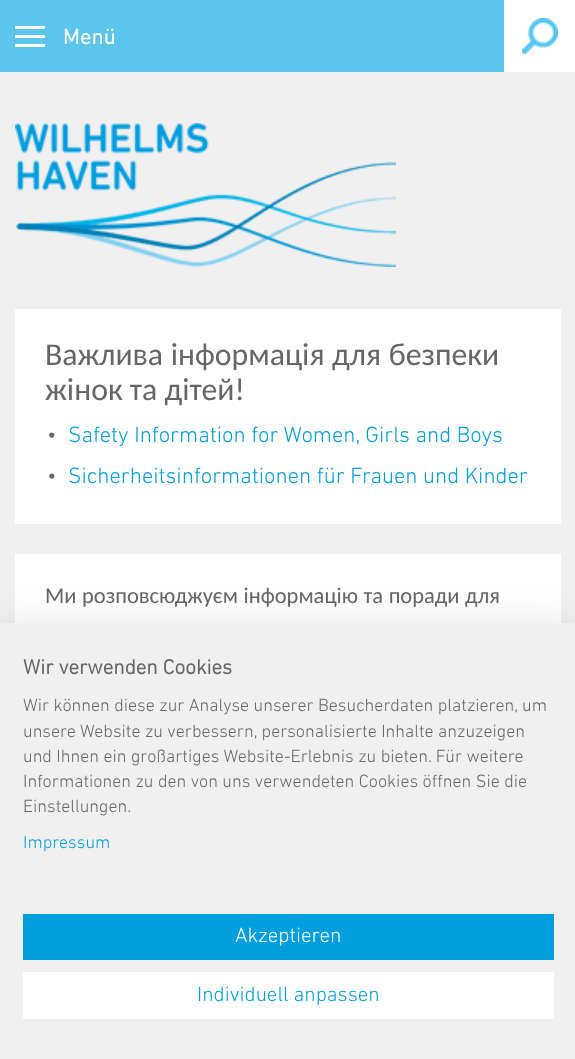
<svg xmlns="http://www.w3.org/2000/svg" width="575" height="1059">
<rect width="100%" height="100%" fill="#f0f0f0"/>
<rect width="504" height="72" fill="#5bc5ec"/>
<rect x="15" y="26" width="30" height="3" fill="#fff"/>
<rect x="15" y="35" width="30" height="3" fill="#fff"/>
<text x="63" y="44" style="font-family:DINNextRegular;font-size:22.5px;fill:#fff">Menü</text>
<rect x="15" y="44" width="30" height="3" fill="#fff"/>
<rect x="504" width="71" height="72" fill="#fff"/>
<image x="522" y="18" width="36" height="36" href="media/1.png"/>
<image x="15" y="123" width="381" height="144" href="media/2.png"/>
<rect x="15" y="309" width="546" height="215" fill="#fff"/>
<text x="45" y="365" word-spacing="0.5" style="font-family:Carlito;font-size:31.75px;fill:#666">Важлива інформація для безпеки</text>
<text x="45" y="400" style="font-family:Carlito;font-size:31.75px;fill:#666">жінок та дітей!</text>
<text x="47" y="442" style="font-family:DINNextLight;font-size:22.5px;font-weight:300;fill:#666">•</text>
<text x="68" y="442" style="font-family:DINNextLight;font-size:22.5px;font-weight:300;fill:#009edf">Safety Information for Women, Girls and Boys</text>
<text x="47" y="483" style="font-family:DINNextLight;font-size:22.5px;font-weight:300;fill:#666">•</text>
<text x="68" y="483" style="font-family:DINNextLight;font-size:22.5px;font-weight:300;fill:#009edf">Sicherheitsinformationen für Frauen und Kinder</text>
<rect x="15" y="554" width="546" height="69" fill="#fff"/>
<text x="45" y="603" word-spacing="0.5" style="font-family:Carlito;font-size:22.5px;fill:#666">Ми розповсюджуєм інформацію та поради для</text>
<rect y="623" width="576" height="436" fill="#0000001a" filter="blur(18px)"/>
<rect y="623" width="575" height="436" fill="#f0f0f0"/>
<text x="23" y="674" style="font-family:DINNextLight;font-size:21px;font-weight:bold;fill:#666">Wir verwenden Cookies</text>
<text x="23" y="711" style="font-family:DINNextLight;font-size:18px;font-weight:300;fill:#666">Wir können diese zur Analyse unserer Besucherdaten platzieren, um</text>
<text x="23" y="737" style="font-family:DINNextLight;font-size:18px;font-weight:300;fill:#666">unsere Website zu verbessern, personalisierte Inhalte anzuzeigen</text>
<text x="23" y="762" style="font-family:DINNextLight;font-size:18px;font-weight:300;fill:#666">und Ihnen ein großartiges Website-Erlebnis zu bieten. Für weitere</text>
<text x="23" y="787" style="font-family:DINNextLight;font-size:18px;font-weight:300;fill:#666">Informationen zu den von uns verwendeten Cookies öffnen Sie die</text>
<text x="23" y="812" style="font-family:DINNextLight;font-size:18px;font-weight:300;fill:#666">Einstellungen.</text>
<text x="23" y="848" style="font-family:DINNextLight;font-size:18px;font-weight:300;fill:#009edf">Impressum</text>
<rect x="23" y="914" width="531" height="46" fill="#009edf"/>
<text x="235" y="942" style="font-family:DINNextLight;font-size:21px;font-weight:300;fill:#fff">Akzeptieren</text>
<rect x="23" y="972" width="531" height="47" fill="#fff"/>
<text x="197" y="1001" style="font-family:DINNextLight;font-size:21px;font-weight:300;fill:#009edf">Individuell anpassen</text>
</svg>
